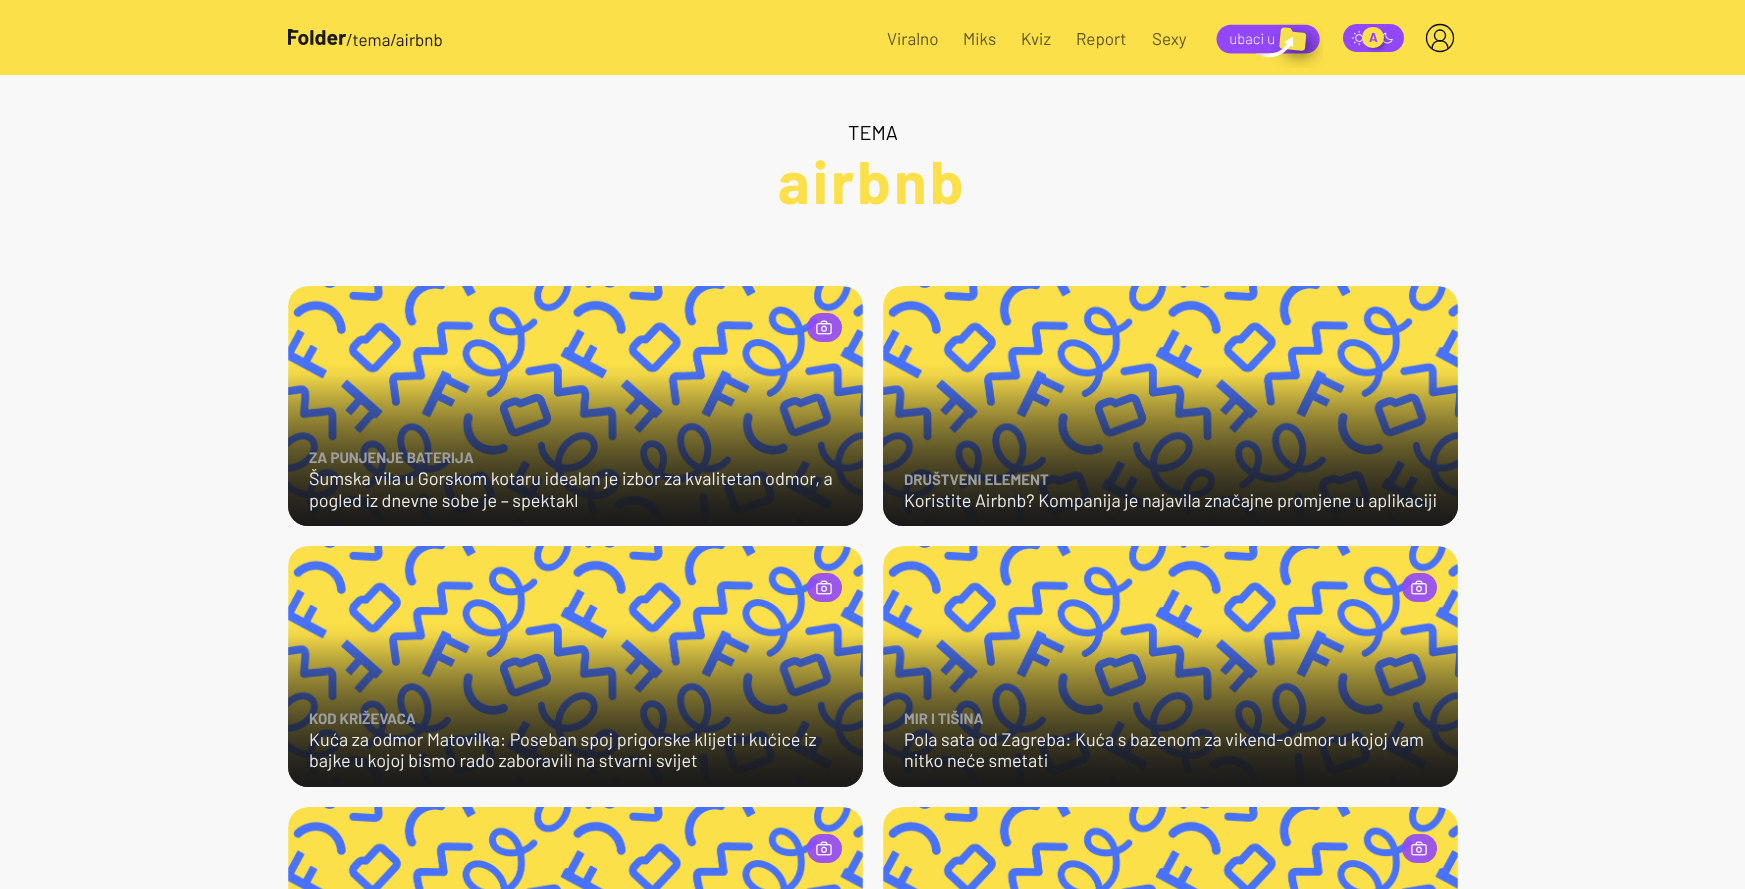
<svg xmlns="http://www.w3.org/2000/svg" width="1745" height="889">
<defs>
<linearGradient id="g1" gradientUnits="userSpaceOnUse" x1="576" y1="286" x2="576" y2="526"><stop offset="0.37" stop-color="#1a1a1a" stop-opacity="0"/><stop offset="1" stop-color="#1a1a1a"/></linearGradient>
<linearGradient id="g2" gradientUnits="userSpaceOnUse" x1="576" y1="286" x2="576" y2="526"><stop offset="0.32" stop-color="#1a1a1a" stop-opacity="0"/><stop offset="1" stop-color="#1a1a1a" stop-opacity="0.7"/></linearGradient>
<linearGradient id="g3" gradientUnits="userSpaceOnUse" x1="1171" y1="286" x2="1171" y2="526"><stop offset="0.37" stop-color="#1a1a1a" stop-opacity="0"/><stop offset="1" stop-color="#1a1a1a"/></linearGradient>
<linearGradient id="g4" gradientUnits="userSpaceOnUse" x1="1171" y1="286" x2="1171" y2="526"><stop offset="0.32" stop-color="#1a1a1a" stop-opacity="0"/><stop offset="1" stop-color="#1a1a1a" stop-opacity="0.7"/></linearGradient>
<linearGradient id="g5" gradientUnits="userSpaceOnUse" x1="576" y1="546" x2="576" y2="787"><stop offset="0.37" stop-color="#1a1a1a" stop-opacity="0"/><stop offset="1" stop-color="#1a1a1a"/></linearGradient>
<linearGradient id="g6" gradientUnits="userSpaceOnUse" x1="576" y1="546" x2="576" y2="787"><stop offset="0.32" stop-color="#1a1a1a" stop-opacity="0"/><stop offset="1" stop-color="#1a1a1a" stop-opacity="0.7"/></linearGradient>
<linearGradient id="g7" gradientUnits="userSpaceOnUse" x1="1171" y1="546" x2="1171" y2="787"><stop offset="0.37" stop-color="#1a1a1a" stop-opacity="0"/><stop offset="1" stop-color="#1a1a1a"/></linearGradient>
<linearGradient id="g8" gradientUnits="userSpaceOnUse" x1="1171" y1="546" x2="1171" y2="787"><stop offset="0.32" stop-color="#1a1a1a" stop-opacity="0"/><stop offset="1" stop-color="#1a1a1a" stop-opacity="0.7"/></linearGradient>
</defs>
<rect width="100%" height="100%" fill="#f8f8f8"/>
<rect width="1745" height="75" fill="#fbe049"/>
<image x="288" y="29" width="58" height="16" href="media/1.png"/>
<text x="346" y="46" style="font-family:Barlow;font-size:17px;fill:#1a1a1a">/tema/airbnb</text>
<text x="887" y="45" style="font-family:Barlow;font-size:17px;fill:#5e5528">Viralno</text>
<text x="963" y="45" style="font-family:Barlow;font-size:17px;fill:#5e5528">Miks</text>
<text x="1021" y="45" style="font-family:Barlow;font-size:17px;fill:#5e5528">Kviz</text>
<text x="1076" y="45" style="font-family:Barlow;font-size:17px;fill:#5e5528">Report</text>
<text x="1152" y="45" style="font-family:Barlow;font-size:17px;fill:#5e5528">Sexy</text>
<image x="1216" y="23" width="107" height="45" href="media/2.png"/>
<rect x="1343" y="24" width="61" height="28" rx="14" fill="#9248fa"/>
<image x="1351" y="30" width="14" height="16" href="media/3.png"/>
<image x="1383" y="32" width="10" height="12" href="media/4.png"/>
<rect x="1369" y="35" width="14" height="13" rx="6.5" fill="#000000a6" filter="blur(3px)"/>
<rect x="1362" y="27" width="22" height="21" rx="10.5" fill="#fbe049"/>
<text x="1369" y="42" style="font-family:Barlow;font-size:13px;font-weight:bold;fill:#9248fa">A</text>
<path d="M1448 48.5c0-10.5-16-10.5-16 0" fill="none" stroke="#0a0a0a" stroke-width="1.3" stroke-linecap="round" stroke-linejoin="round"/>
<circle cx="1440" cy="35.5" r="5.5" fill="none" stroke="#0a0a0a" stroke-width="1.3"/>
<circle cx="1440" cy="38" r="13.5" fill="none" stroke="#0a0a0a" stroke-width="1.3"/>
<text x="848" y="140" style="font-family:Barlow;font-size:20px;fill:#000">TEMA</text>
<text x="778" y="204" style="font-family:Barlow;font-size:60px;font-weight:bold;letter-spacing:3px;fill:#fbe049">airbnb</text>
<image x="288" y="286" width="575" height="240" href="media/5.png"/>
<rect x="288" y="286" width="575" height="240" rx="20" fill="url(#g1)"/>
<rect x="288" y="286" width="575" height="240" rx="20" fill="url(#g2)"/>
<rect x="807" y="313" width="35" height="29" rx="14.5" fill="#9248fae6"/>
<image x="816" y="320" width="16" height="15" href="media/6.png"/>
<text x="309" y="463" style="font-family:Barlow;font-size:15px;font-weight:bold;fill:#9d9e9f">ZA PUNJENJE BATERIJA</text>
<text x="309" y="485" style="font-family:Barlow;font-size:18px;fill:#ebeaea">Šumska vila u Gorskom kotaru idealan je izbor za kvalitetan odmor, a</text>
<text x="309" y="507" style="font-family:Barlow;font-size:18px;fill:#ebeaea">pogled iz dnevne sobe je – spektakl</text>
<image x="883" y="286" width="575" height="240" href="media/5.png"/>
<rect x="883" y="286" width="575" height="240" rx="20" fill="url(#g3)"/>
<rect x="883" y="286" width="575" height="240" rx="20" fill="url(#g4)"/>
<text x="904" y="485" style="font-family:Barlow;font-size:15px;font-weight:bold;fill:#9d9e9f">DRUŠTVENI ELEMENT</text>
<text x="904" y="507" style="font-family:Barlow;font-size:18px;fill:#ebeaea">Koristite Airbnb? Kompanija je najavila značajne promjene u aplikaciji</text>
<image x="288" y="546" width="575" height="241" href="media/7.png"/>
<rect x="288" y="546" width="575" height="241" rx="20" fill="url(#g5)"/>
<rect x="288" y="546" width="575" height="241" rx="20" fill="url(#g6)"/>
<rect x="807" y="573" width="35" height="29" rx="14.5" fill="#9248fae6"/>
<image x="816" y="580" width="16" height="15" href="media/6.png"/>
<text x="309" y="724" style="font-family:Barlow;font-size:15px;font-weight:bold;fill:#9d9e9f">KOD KRIŽEVACA</text>
<text x="309" y="746" style="font-family:Barlow;font-size:18px;fill:#ebeaea">Kuća za odmor Matovilka: Poseban spoj prigorske klijeti i kućice iz</text>
<text x="309" y="767" style="font-family:Barlow;font-size:18px;fill:#ebeaea">bajke u kojoj bismo rado zaboravili na stvarni svijet</text>
<image x="883" y="546" width="575" height="241" href="media/7.png"/>
<rect x="883" y="546" width="575" height="241" rx="20" fill="url(#g7)"/>
<rect x="883" y="546" width="575" height="241" rx="20" fill="url(#g8)"/>
<rect x="1402" y="573" width="35" height="29" rx="14.5" fill="#9248fae6"/>
<image x="1411" y="580" width="16" height="15" href="media/6.png"/>
<text x="904" y="724" style="font-family:Barlow;font-size:15px;font-weight:bold;fill:#9d9e9f">MIR I TIŠINA</text>
<text x="904" y="746" style="font-family:Barlow;font-size:18px;fill:#ebeaea">Pola sata od Zagreba: Kuća s bazenom za vikend-odmor u kojoj vam</text>
<text x="904" y="767" style="font-family:Barlow;font-size:18px;fill:#ebeaea">nitko neće smetati</text>
<image x="288" y="807" width="575" height="82" href="media/8.png"/>
<rect x="807" y="834" width="35" height="29" rx="14.5" fill="#9248fae6"/>
<image x="816" y="841" width="16" height="15" href="media/6.png"/>
<image x="883" y="807" width="575" height="82" href="media/8.png"/>
<rect x="1402" y="834" width="35" height="29" rx="14.5" fill="#9248fae6"/>
<image x="1411" y="841" width="16" height="15" href="media/6.png"/>
</svg>
